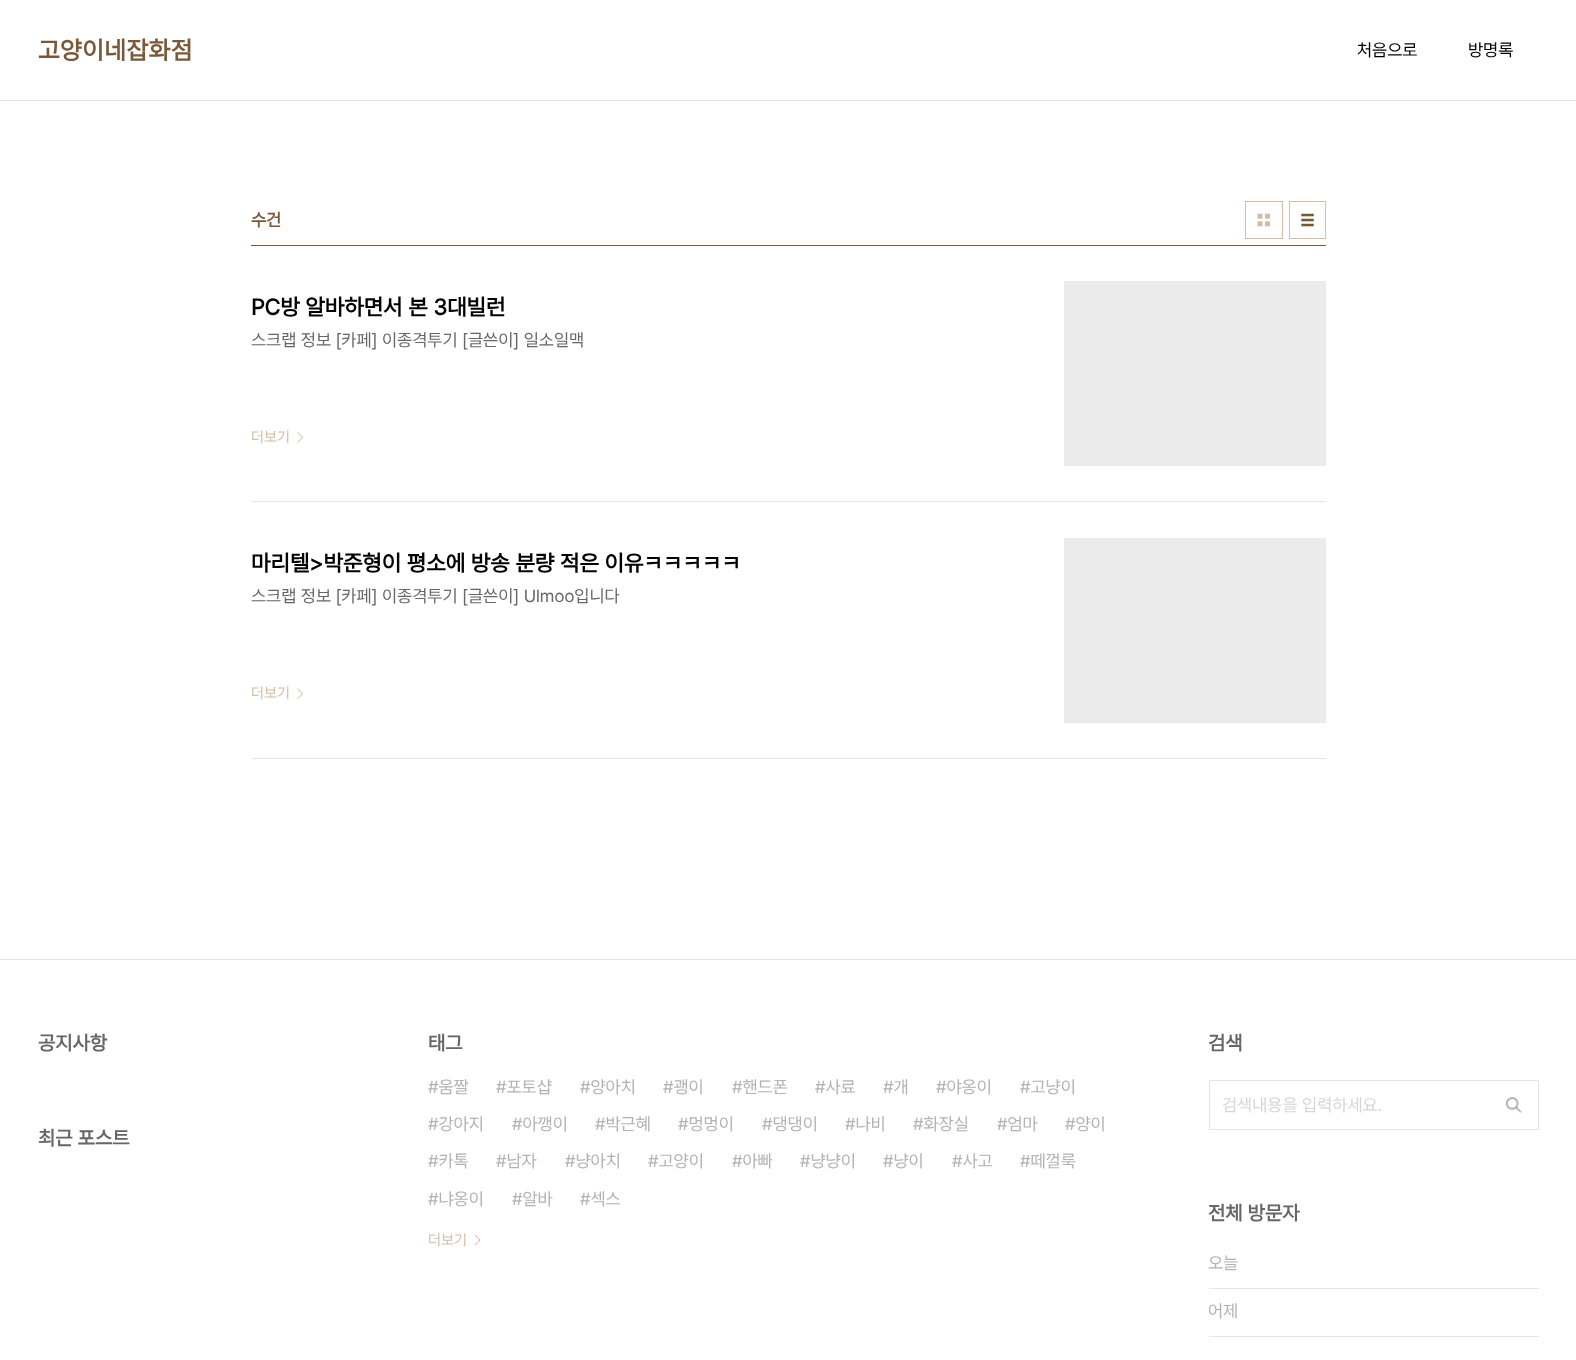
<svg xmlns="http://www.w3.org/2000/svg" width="1576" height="1360">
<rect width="100%" height="100%" fill="#fff"/>
<rect y="100" width="1576" height="1" fill="#e6e6e6"/>
<text x="38" y="59" style="font-family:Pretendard;font-size:25px;font-weight:bold;letter-spacing:0.5px;fill:#7a583a">고양이네잡화점</text>
<text x="1357" y="56" style="font-family:Pretendard;font-size:17.5px;fill:#000">처음으로</text>
<text x="1468" y="56" style="font-family:Pretendard;font-size:17.5px;fill:#000">방명록</text>
<rect x="251" y="245" width="1075" height="1" fill="#7a583a"/>
<text x="251" y="226" style="font-family:Pretendard;font-size:17.5px;font-weight:bold;fill:#7a583a">수건</text>
<image x="1257" y="213" width="14" height="14" href="media/1.png"/>
<rect x="1245.5" y="201.5" width="37" height="37" fill="none" stroke="#d4bca7"/>
<image x="1301" y="213" width="13" height="14" href="media/2.png"/>
<rect x="1289.5" y="201.5" width="36" height="37" fill="none" stroke="#d4bca7"/>
<rect x="251" y="501" width="1075" height="1" fill="#e6e6e6"/>
<text x="251" y="315" style="font-family:Pretendard;font-size:22.5px;font-weight:bold;fill:#000">PC방 알바하면서 본 3대빌런</text>
<rect x="1064" y="281" width="262" height="185" fill="#ebebeb"/>
<text x="251" y="346" style="font-family:Pretendard;font-size:17.5px;fill:#666">스크랩 정보 [카페] 이종격투기 [글쓴이] 일소일맥</text>
<text x="251" y="442" style="font-family:Pretendard;font-size:15px;fill:#d4bca7">더보기</text>
<image x="297" y="432" width="6" height="11" href="media/3.png"/>
<rect x="251" y="758" width="1075" height="1" fill="#e6e6e6"/>
<text x="251" y="571" style="font-family:Pretendard;font-size:22.5px;font-weight:bold;fill:#000">마리텔&gt;박준형이 평소에 방송 분량 적은 이유ㅋㅋㅋㅋㅋ</text>
<rect x="1064" y="538" width="262" height="185" fill="#ebebeb"/>
<text x="251" y="602" style="font-family:Pretendard;font-size:17.5px;fill:#666">스크랩 정보 [카페] 이종격투기 [글쓴이] Ulmoo입니다</text>
<text x="251" y="698" style="font-family:Pretendard;font-size:15px;fill:#d4bca7">더보기</text>
<image x="297" y="688" width="6" height="11" href="media/4.png"/>
<rect y="959" width="1576" height="1" fill="#e6e6e6"/>
<text x="38" y="1050" style="font-family:Pretendard;font-size:20px;font-weight:bold;fill:#666">공지사항</text>
<text x="38" y="1145" style="font-family:Pretendard;font-size:20px;font-weight:bold;fill:#666">최근 포스트</text>
<text x="428" y="1050" style="font-family:Pretendard;font-size:20px;font-weight:bold;fill:#666">태그</text>
<text x="428" y="1093" style="font-family:Pretendard;font-size:17.5px;fill:#b2b2b2">#움짤</text>
<text x="496" y="1093" style="font-family:Pretendard;font-size:17.5px;fill:#b2b2b2">#포토샵</text>
<text x="580" y="1093" style="font-family:Pretendard;font-size:17.5px;fill:#b2b2b2">#양아치</text>
<text x="663" y="1093" style="font-family:Pretendard;font-size:17.5px;fill:#b2b2b2">#괭이</text>
<text x="732" y="1093" style="font-family:Pretendard;font-size:17.5px;fill:#b2b2b2">#핸드폰</text>
<text x="815" y="1093" style="font-family:Pretendard;font-size:17.5px;fill:#b2b2b2">#사료</text>
<text x="883" y="1093" style="font-family:Pretendard;font-size:17.5px;fill:#b2b2b2">#개</text>
<text x="936" y="1093" style="font-family:Pretendard;font-size:17.5px;fill:#b2b2b2">#야옹이</text>
<text x="1020" y="1093" style="font-family:Pretendard;font-size:17.5px;fill:#b2b2b2">#고냥이</text>
<text x="428" y="1130" style="font-family:Pretendard;font-size:17.5px;fill:#b2b2b2">#강아지</text>
<text x="512" y="1130" style="font-family:Pretendard;font-size:17.5px;fill:#b2b2b2">#아깽이</text>
<text x="595" y="1130" style="font-family:Pretendard;font-size:17.5px;fill:#b2b2b2">#박근혜</text>
<text x="678" y="1130" style="font-family:Pretendard;font-size:17.5px;fill:#b2b2b2">#멍멍이</text>
<text x="762" y="1130" style="font-family:Pretendard;font-size:17.5px;fill:#b2b2b2">#댕댕이</text>
<text x="845" y="1130" style="font-family:Pretendard;font-size:17.5px;fill:#b2b2b2">#나비</text>
<text x="913" y="1130" style="font-family:Pretendard;font-size:17.5px;fill:#b2b2b2">#화장실</text>
<text x="997" y="1130" style="font-family:Pretendard;font-size:17.5px;fill:#b2b2b2">#엄마</text>
<text x="1065" y="1130" style="font-family:Pretendard;font-size:17.5px;fill:#b2b2b2">#양이</text>
<text x="428" y="1167" style="font-family:Pretendard;font-size:17.5px;fill:#b2b2b2">#카톡</text>
<text x="496" y="1167" style="font-family:Pretendard;font-size:17.5px;fill:#b2b2b2">#남자</text>
<text x="565" y="1167" style="font-family:Pretendard;font-size:17.5px;fill:#b2b2b2">#냥아치</text>
<text x="648" y="1167" style="font-family:Pretendard;font-size:17.5px;fill:#b2b2b2">#고양이</text>
<text x="732" y="1167" style="font-family:Pretendard;font-size:17.5px;fill:#b2b2b2">#아빠</text>
<text x="800" y="1167" style="font-family:Pretendard;font-size:17.5px;fill:#b2b2b2">#냥냥이</text>
<text x="883" y="1167" style="font-family:Pretendard;font-size:17.5px;fill:#b2b2b2">#냥이</text>
<text x="952" y="1167" style="font-family:Pretendard;font-size:17.5px;fill:#b2b2b2">#사고</text>
<text x="1020" y="1167" style="font-family:Pretendard;font-size:17.5px;fill:#b2b2b2">#떼껄룩</text>
<text x="428" y="1205" style="font-family:Pretendard;font-size:17.5px;fill:#b2b2b2">#냐옹이</text>
<text x="512" y="1205" style="font-family:Pretendard;font-size:17.5px;fill:#b2b2b2">#알바</text>
<text x="580" y="1205" style="font-family:Pretendard;font-size:17.5px;fill:#b2b2b2">#섹스</text>
<text x="428" y="1245" style="font-family:Pretendard;font-size:15px;fill:#d4bca7">더보기</text>
<image x="475" y="1235" width="5" height="10" href="media/5.png"/>
<text x="1208" y="1050" style="font-family:Pretendard;font-size:20px;font-weight:bold;fill:#666">검색</text>
<rect x="1209.5" y="1080.5" width="329" height="49" fill="none" stroke="#e6e6e6"/>
<text x="1222" y="1111" style="font-family:Pretendard;font-size:17.5px;fill:#d6d6d6">검색내용을 입력하세요.</text>
<image x="1506" y="1097" width="16" height="16" href="media/6.png"/>
<text x="1208" y="1220" style="font-family:Pretendard;font-size:20px;font-weight:bold;fill:#666">전체 방문자</text>
<rect x="1209" y="1288" width="330" height="1" fill="#e6e6e6"/>
<text x="1208" y="1269" style="font-family:Pretendard;font-size:17.5px;fill:#b2b2b2">오늘</text>
<rect x="1209" y="1336" width="330" height="1" fill="#e6e6e6"/>
<text x="1208" y="1317" style="font-family:Pretendard;font-size:17.5px;fill:#b2b2b2">어제</text>
</svg>
